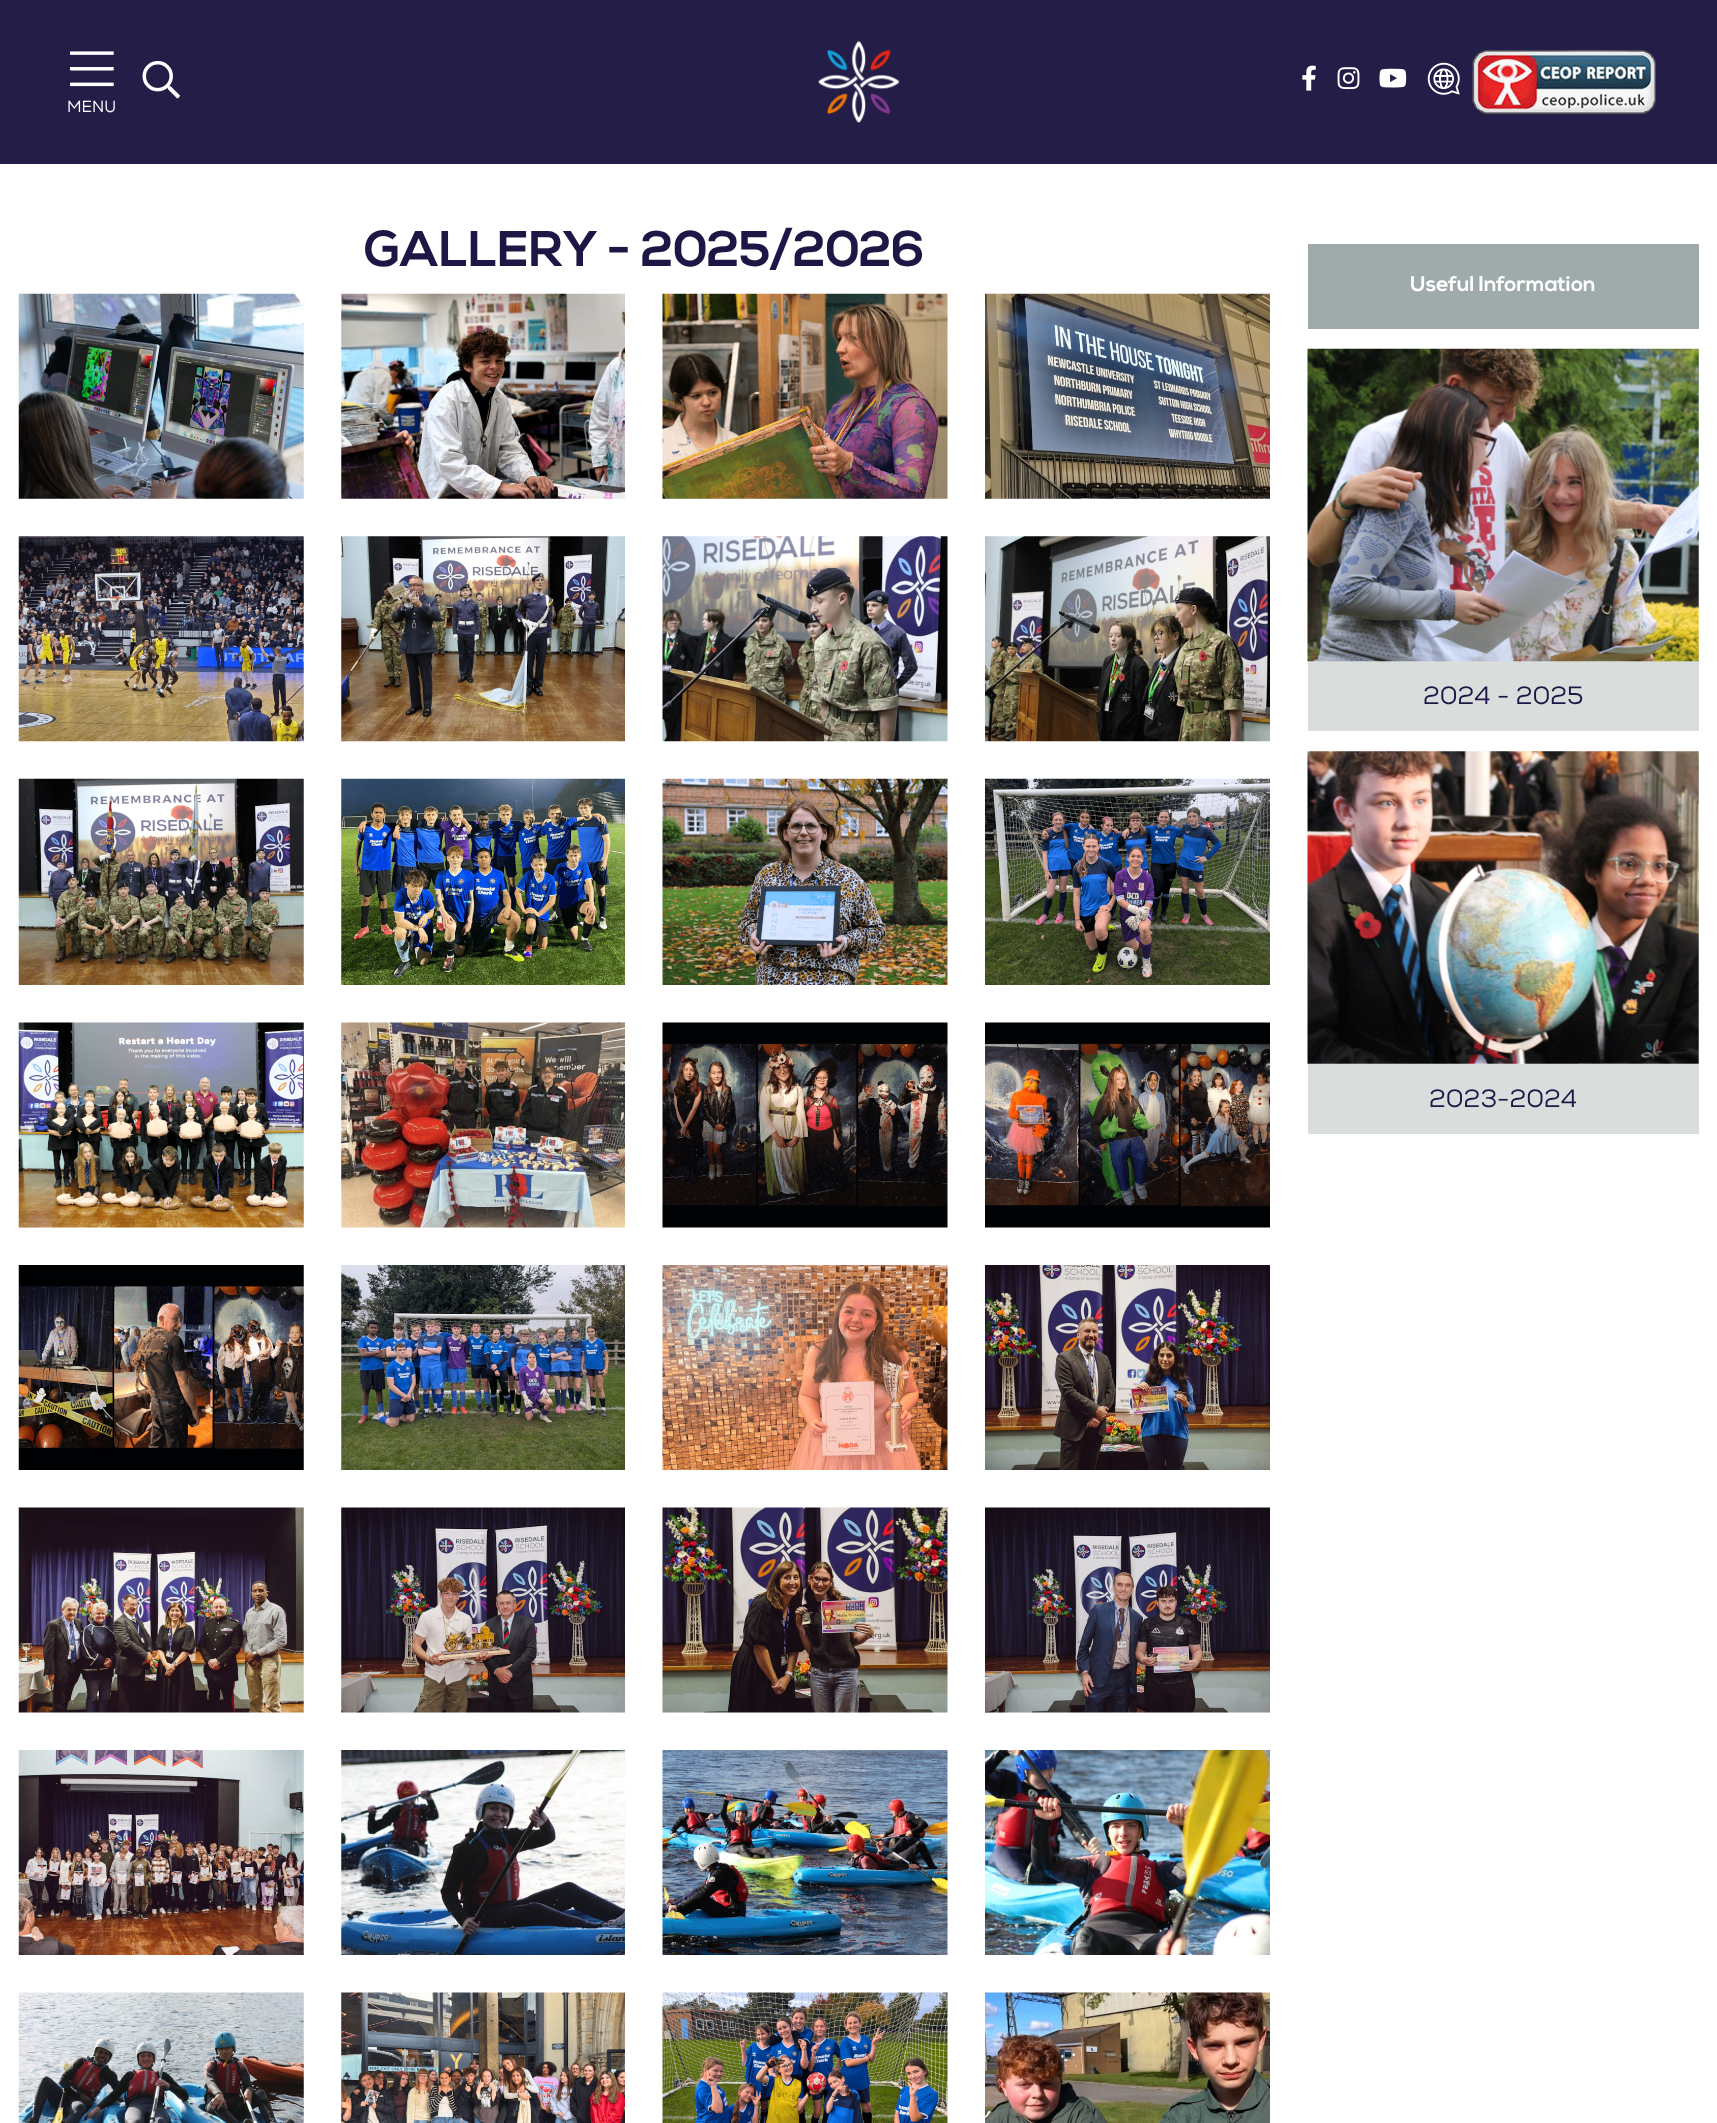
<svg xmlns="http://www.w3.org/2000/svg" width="1717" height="2123">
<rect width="100%" height="100%" fill="#fff"/>
<rect width="1717" height="164" fill="#241d47"/>
<image x="142" y="60" width="38" height="39" href="media/1.png"/>
<image x="70" y="51" width="44" height="36" href="media/2.png"/>
<text x="67" y="112" style="font-family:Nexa;font-size:16px;fill:#fff">MENU</text>
<image x="818" y="40" width="82" height="83" href="media/3.png"/>
<image x="1302" y="65" width="14" height="26" href="media/4.png"/>
<image x="1337" y="67" width="23" height="23" href="media/5.png"/>
<image x="1379" y="68" width="28" height="20" href="media/6.png"/>
<image x="1427" y="62" width="33" height="33" href="media/7.png"/>
<image x="1472" y="50" width="184" height="64" href="media/8.png"/>
<text x="364" y="266" style="font-family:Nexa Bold;font-size:50px;font-weight:bold;fill:#201646">GALLERY - 2025/2026</text>
<image x="18" y="293" width="286" height="206" href="media/9.png"/>
<image x="341" y="293" width="284" height="206" href="media/10.png"/>
<image x="662" y="293" width="286" height="206" href="media/11.png"/>
<image x="985" y="293" width="285" height="206" href="media/12.png"/>
<image x="18" y="536" width="286" height="206" href="media/13.png"/>
<image x="341" y="536" width="284" height="206" href="media/14.png"/>
<image x="662" y="536" width="286" height="206" href="media/15.png"/>
<image x="985" y="536" width="285" height="206" href="media/16.png"/>
<image x="18" y="778" width="286" height="207" href="media/17.png"/>
<image x="341" y="778" width="284" height="207" href="media/18.png"/>
<image x="662" y="778" width="286" height="207" href="media/19.png"/>
<image x="985" y="778" width="285" height="207" href="media/20.png"/>
<image x="18" y="1022" width="286" height="206" href="media/21.png"/>
<image x="341" y="1022" width="284" height="206" href="media/22.png"/>
<image x="662" y="1022" width="286" height="206" href="media/23.png"/>
<image x="985" y="1022" width="285" height="206" href="media/24.png"/>
<image x="18" y="1265" width="286" height="205" href="media/25.png"/>
<image x="341" y="1265" width="284" height="205" href="media/26.png"/>
<image x="662" y="1265" width="286" height="205" href="media/27.png"/>
<image x="985" y="1265" width="285" height="205" href="media/28.png"/>
<image x="18" y="1507" width="286" height="206" href="media/29.png"/>
<image x="341" y="1507" width="284" height="206" href="media/30.png"/>
<image x="662" y="1507" width="286" height="206" href="media/31.png"/>
<image x="985" y="1507" width="285" height="206" href="media/32.png"/>
<image x="18" y="1750" width="286" height="205" href="media/33.png"/>
<image x="341" y="1750" width="284" height="205" href="media/34.png"/>
<image x="662" y="1750" width="286" height="205" href="media/35.png"/>
<image x="985" y="1750" width="285" height="205" href="media/36.png"/>
<image x="18" y="1992" width="286" height="131" href="media/37.png"/>
<image x="341" y="1992" width="284" height="131" href="media/38.png"/>
<image x="662" y="1992" width="286" height="131" href="media/39.png"/>
<image x="985" y="1992" width="285" height="131" href="media/40.png"/>
<rect x="1308" y="244" width="391" height="85" fill="#9eabaa"/>
<text x="1410" y="291" style="font-family:Nexa Bold;font-size:21.25px;font-weight:bold;fill:#fff">Useful Information</text>
<rect x="1308" y="661" width="391" height="70" fill="#d9dedd"/>
<image x="1307" y="348" width="392" height="314" href="media/41.png"/>
<text x="1423" y="704" style="font-family:Nexa;font-size:25px;fill:#201646">2024 - 2025</text>
<image x="1307" y="751" width="392" height="313" href="media/42.png"/>
<rect x="1308" y="1064" width="391" height="70" fill="#d9dedd"/>
<text x="1429" y="1107" style="font-family:Nexa;font-size:25px;fill:#201646">2023-2024</text>
</svg>
